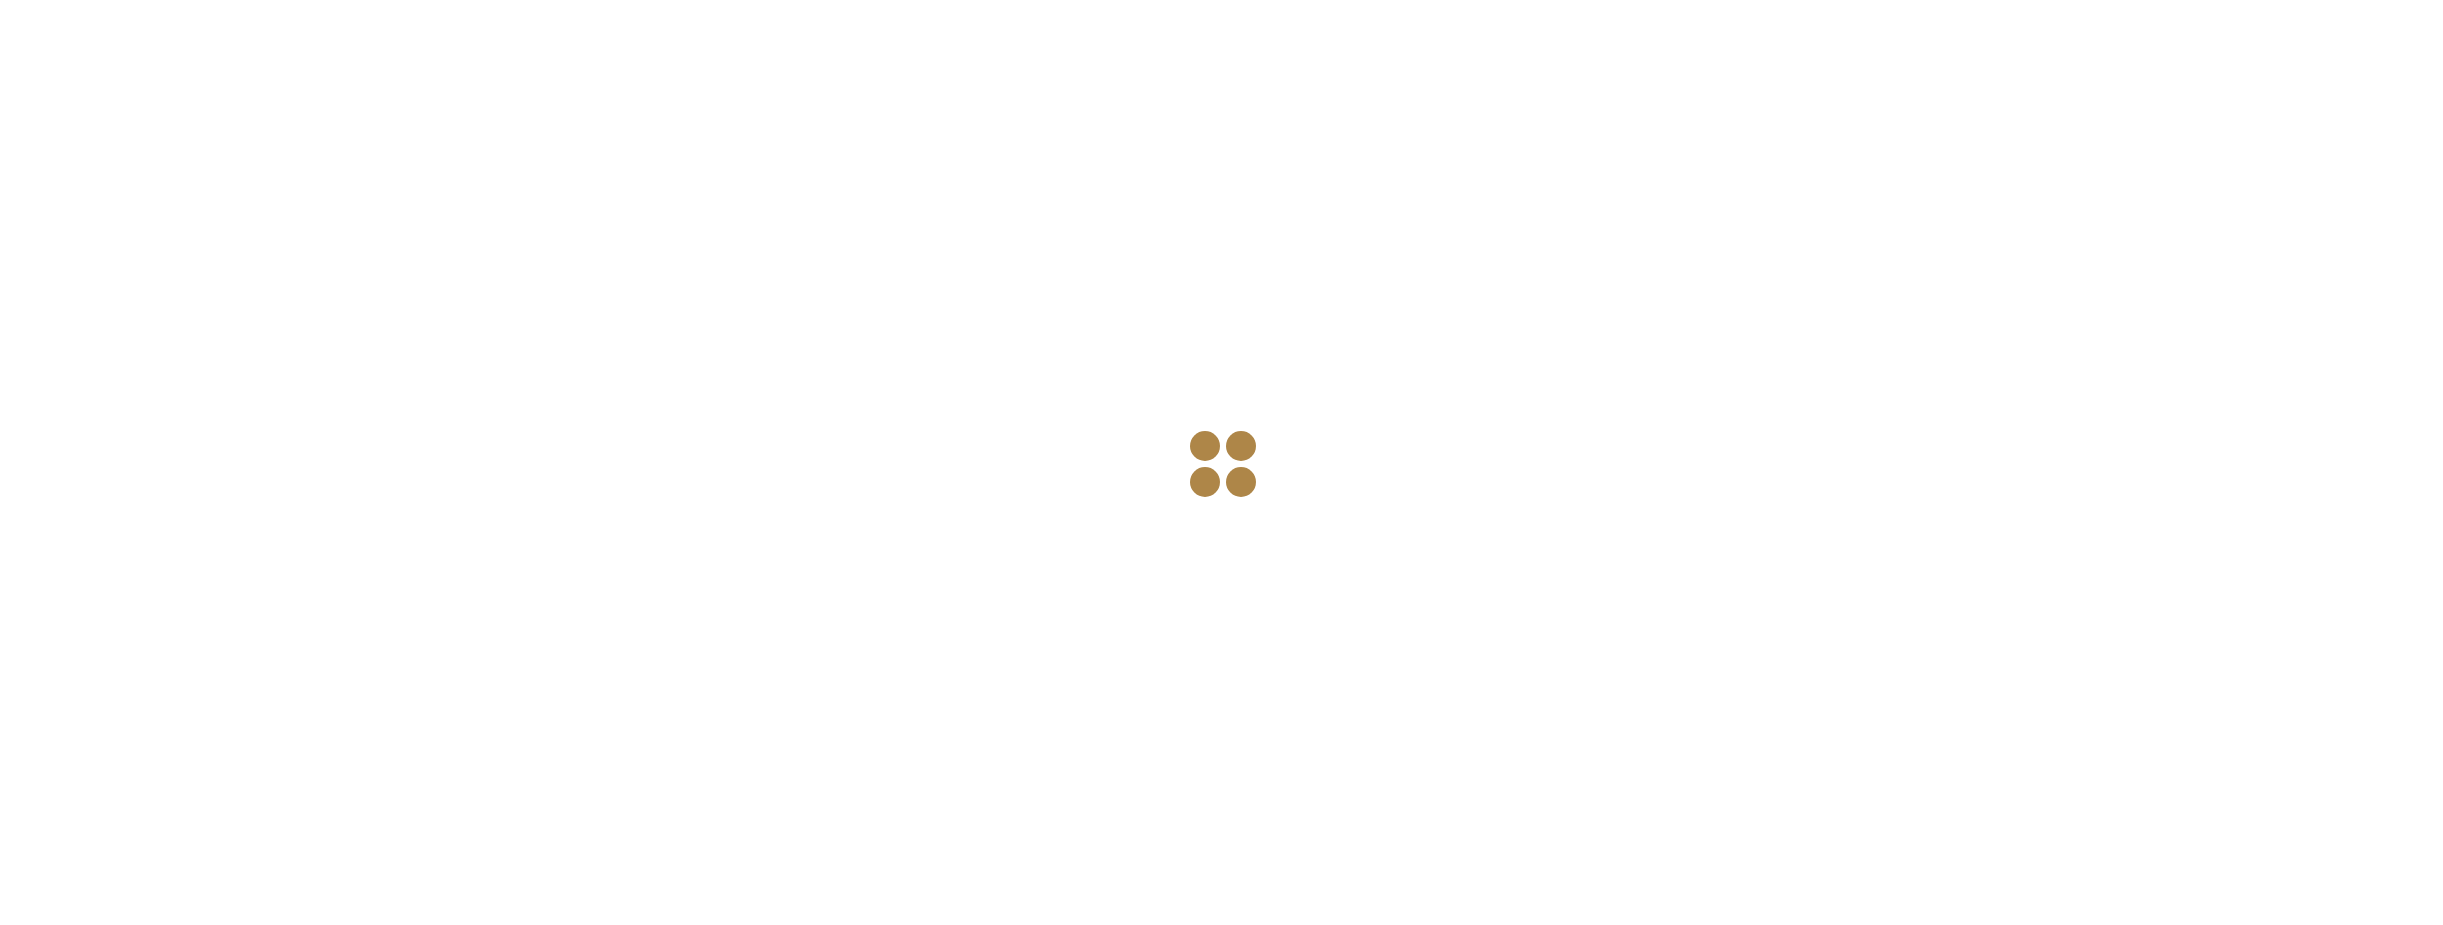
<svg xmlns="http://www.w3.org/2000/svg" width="2443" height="925">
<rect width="100%" height="100%" fill="#fff"/>
<circle cx="1205" cy="446" r="15" fill="#ae8648"/>
<circle cx="1241" cy="446" r="15" fill="#ae8648"/>
<circle cx="1205" cy="482" r="15" fill="#ae8648"/>
<circle cx="1241" cy="482" r="15" fill="#ae8648"/>
</svg>
